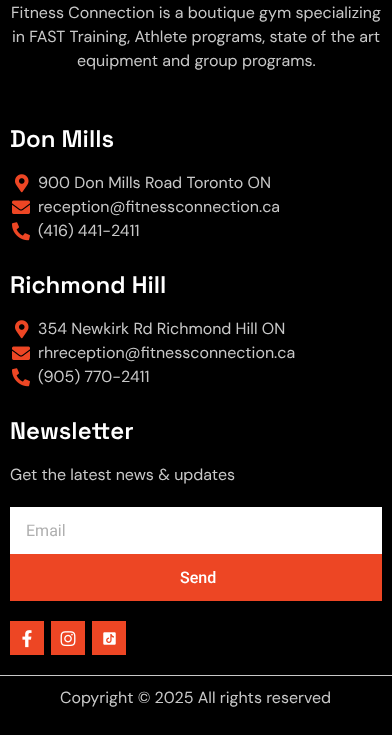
<svg xmlns="http://www.w3.org/2000/svg" width="392" height="735">
<rect width="100%" height="100%" fill="#000"/>
<text x="11" y="18" style="font-family:DM Sans;font-size:16px;fill:#c8c8c8">Fitness Connection is a boutique gym specializing</text>
<text x="12" y="42" style="font-family:DM Sans;font-size:16px;fill:#c8c8c8">in FAST Training, Athlete programs, state of the art</text>
<text x="77" y="66" style="font-family:DM Sans;font-size:16px;fill:#c8c8c8">equipment and group programs.</text>
<text x="10" y="147" style="font-family:Space Grotesk;font-size:24px;font-weight:600;fill:#fff">Don Mills</text>
<image x="15" y="174" width="14" height="19" href="media/1.png"/>
<text x="38" y="188" style="font-family:DM Sans;font-size:16px;fill:#c8c8c8">900 Don Mills Road Toronto ON</text>
<image x="12" y="200" width="18" height="14" href="media/2.png"/>
<text x="38" y="212" style="font-family:DM Sans;font-size:16px;fill:#c8c8c8">reception@fitnessconnection.ca</text>
<image x="12" y="222" width="18" height="19" href="media/3.png"/>
<text x="38" y="236" style="font-family:DM Sans;font-size:16px;fill:#c8c8c8">(416) 441-2411</text>
<text x="10" y="293" style="font-family:Space Grotesk;font-size:24px;font-weight:600;fill:#fff">Richmond Hill</text>
<image x="15" y="320" width="14" height="19" href="media/1.png"/>
<text x="38" y="334" style="font-family:DM Sans;font-size:16px;fill:#c8c8c8">354 Newkirk Rd Richmond Hill ON</text>
<image x="12" y="346" width="18" height="14" href="media/2.png"/>
<text x="38" y="358" style="font-family:DM Sans;font-size:16px;fill:#c8c8c8">rhreception@fitnessconnection.ca</text>
<image x="12" y="368" width="18" height="19" href="media/3.png"/>
<text x="38" y="382" style="font-family:DM Sans;font-size:16px;fill:#c8c8c8">(905) 770-2411</text>
<text x="10" y="439" style="font-family:Space Grotesk;font-size:24px;font-weight:600;fill:#fff">Newsletter</text>
<text x="10" y="480" style="font-family:DM Sans;font-size:16px;fill:#c8c8c8">Get the latest news &amp; updates</text>
<rect x="10" y="507" width="372" height="47" fill="#fff"/>
<text x="26" y="536" style="font-family:Roboto;font-size:16px;fill:#afafaf">Email</text>
<rect x="10" y="554" width="372" height="47" fill="#ed4624"/>
<text x="180" y="583" style="font-family:Roboto;font-size:16px;font-weight:500;fill:#fff">Send</text>
<rect x="10" y="621" width="34" height="34" fill="#ed4624"/>
<image x="22" y="630" width="10" height="18" href="media/4.png"/>
<rect x="51" y="621" width="34" height="34" fill="#ed4624"/>
<image x="60" y="631" width="16" height="16" href="media/5.png"/>
<rect x="92" y="621" width="34" height="34" fill="#ed4624"/>
<image x="103" y="632" width="13" height="13" href="media/6.png"/>
<rect y="675" width="392" height="1" fill="#c8c8c8"/>
<text x="60" y="703" style="font-family:DM Sans;font-size:16px;fill:#c8c8c8">Copyright © 2025 All rights reserved</text>
</svg>
